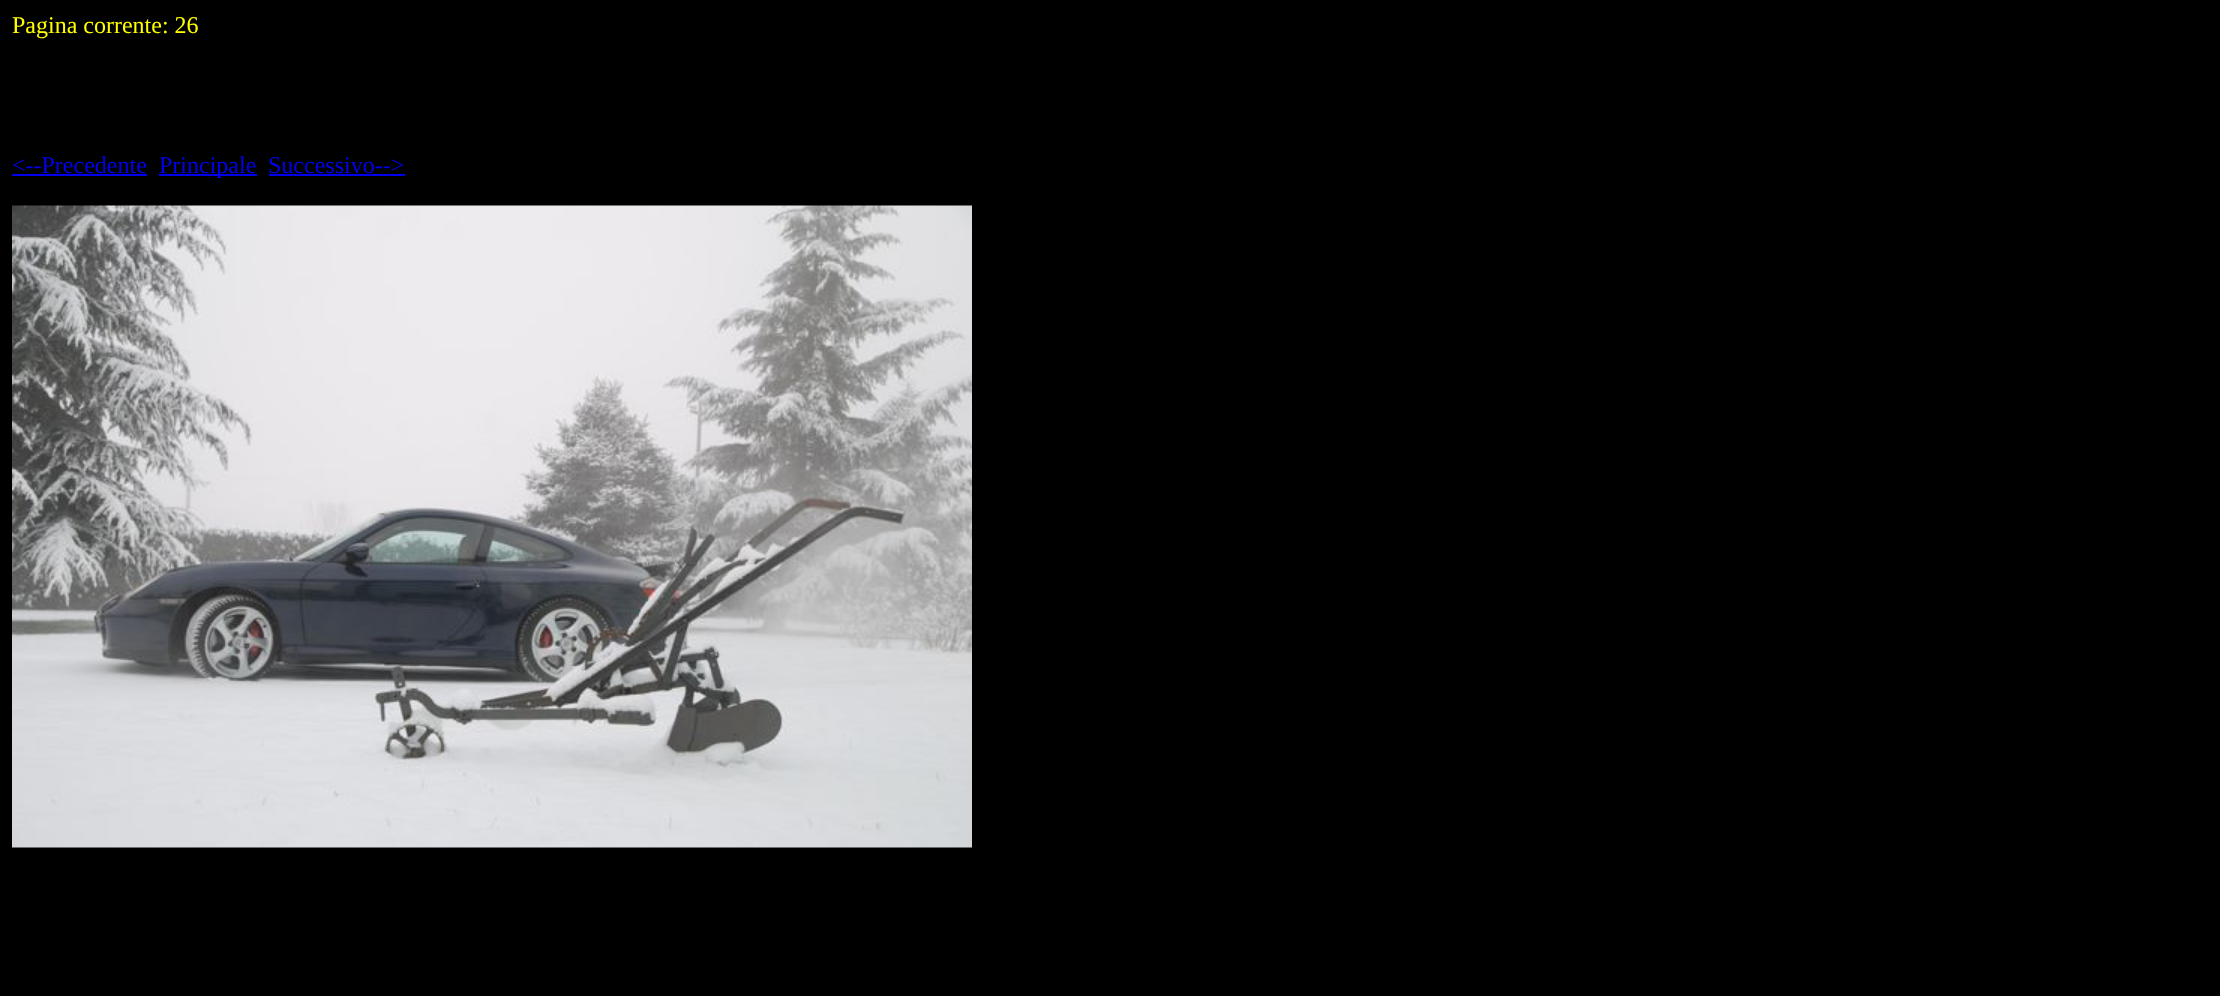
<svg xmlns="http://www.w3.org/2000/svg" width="2220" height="996">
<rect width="100%" height="100%" fill="#000001"/>
<text x="12" y="33" style="font-family:Liberation Serif;font-size:24px;fill:#ff0">Pagina corrente: 26</text>
<text x="12" y="173" style="font-family:Liberation Serif;font-size:24px;fill:#00e">&lt;--Precedente</text>
<rect x="12" y="174" width="135" height="2" fill="#00e"/>
<rect x="159" y="174" width="98" height="2" fill="#00e"/>
<text x="159" y="173" style="font-family:Liberation Serif;font-size:24px;fill:#00e">Principale</text>
<text x="268" y="173" style="font-family:Liberation Serif;font-size:24px;fill:#00e">Successivo--&gt;</text>
<rect x="269" y="174" width="136" height="2" fill="#00e"/>
<image x="12" y="205" width="960" height="643" href="media/1.png"/>
</svg>
